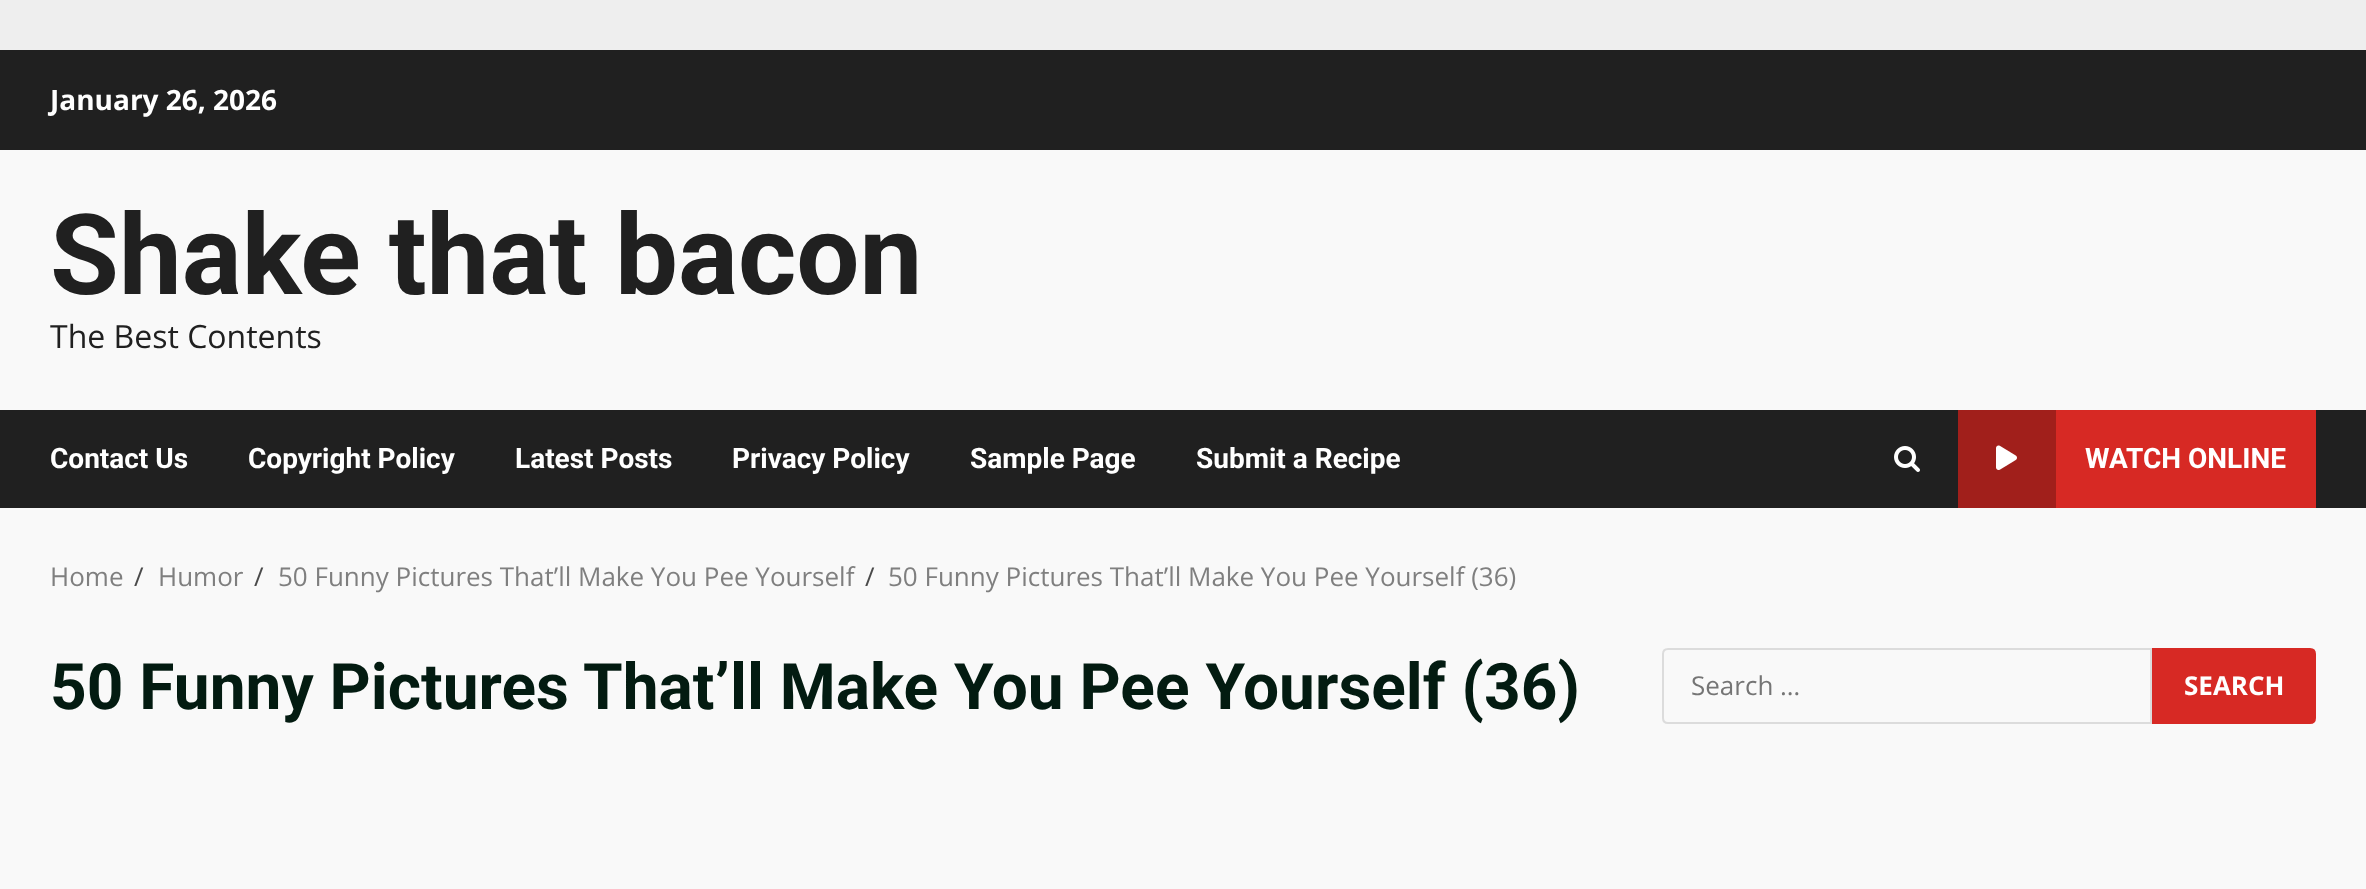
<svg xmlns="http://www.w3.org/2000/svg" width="2366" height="889">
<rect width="100%" height="100%" fill="#eee"/>
<rect y="150" width="2366" height="739" fill="#f9f9f9"/>
<rect y="50" width="2366" height="100" fill="#202020"/>
<text x="50" y="110" style="font-family:Open Sans;font-size:28px;font-weight:bold;fill:#fff">January 26, 2026</text>
<text x="50" y="294" style="font-family:Roboto;font-size:112px;font-weight:bold;fill:#202020">Shake that bacon</text>
<text x="50" y="348" style="font-family:Open Sans;font-size:32px;fill:#202020">The Best Contents</text>
<rect y="410" width="2366" height="98" fill="#202020"/>
<text x="50" y="468" style="font-family:Roboto;font-size:28px;font-weight:bold;fill:#fff">Contact Us</text>
<text x="248" y="468" style="font-family:Roboto;font-size:28px;font-weight:bold;fill:#fff">Copyright Policy</text>
<text x="515" y="468" style="font-family:Roboto;font-size:28px;font-weight:bold;fill:#fff">Latest Posts</text>
<text x="732" y="468" style="font-family:Roboto;font-size:28px;font-weight:bold;fill:#fff">Privacy Policy</text>
<text x="970" y="468" style="font-family:Roboto;font-size:28px;font-weight:bold;fill:#fff">Sample Page</text>
<text x="1196" y="468" style="font-family:Roboto;font-size:28px;font-weight:bold;fill:#fff">Submit a Recipe</text>
<image x="1894" y="446" width="26" height="26" href="media/1.png"/>
<rect x="2056" y="410" width="260" height="98" fill="#d72924"/>
<rect x="1958" y="410" width="98" height="98" fill="#a11f1b"/>
<image x="1996" y="445" width="21" height="25" href="media/2.png"/>
<text x="2085" y="468" style="font-family:Roboto;font-size:28px;font-weight:bold;fill:#fff">WATCH ONLINE</text>
<text x="50" y="586" style="font-family:Open Sans;font-size:26px;fill:#7f7f7f">Home</text>
<text x="134" y="586" style="font-family:Open Sans;font-size:26px;fill:#4a4a4a">/</text>
<text x="158" y="586" style="font-family:Open Sans;font-size:26px;fill:#7f7f7f">Humor</text>
<text x="254" y="586" style="font-family:Open Sans;font-size:26px;fill:#4a4a4a">/</text>
<text x="278" y="586" style="font-family:Open Sans;font-size:26px;fill:#7f7f7f">50 Funny Pictures That’ll Make You Pee Yourself</text>
<text x="865" y="586" style="font-family:Open Sans;font-size:26px;fill:#4a4a4a">/</text>
<text x="888" y="586" style="font-family:Open Sans;font-size:26px;fill:#7f7f7f">50 Funny Pictures That’ll Make You Pee Yourself (36)</text>
<text x="50" y="709" style="font-family:Roboto;font-size:64px;font-weight:bold;fill:#031b11">50 Funny Pictures That’ll Make You Pee Yourself (36)</text>
<path d="M1668 649h483v74h-483c-3 0-5-2-5-5v-64c0-3 2-5 5-5z" fill="none" stroke="#dcdcdc" stroke-width="2"/>
<text x="1691" y="695" style="font-family:Open Sans;font-size:26px;fill:#757575">Search …</text>
<path d="M2153 649h157c3 0 5 2 5 5v64c0 3-2 5-5 5h-157z" fill="#d72924" stroke="#d72924" stroke-width="2"/>
<text x="2184" y="695" style="font-family:Open Sans;font-size:26px;font-weight:bold;fill:#fff">SEARCH</text>
</svg>
